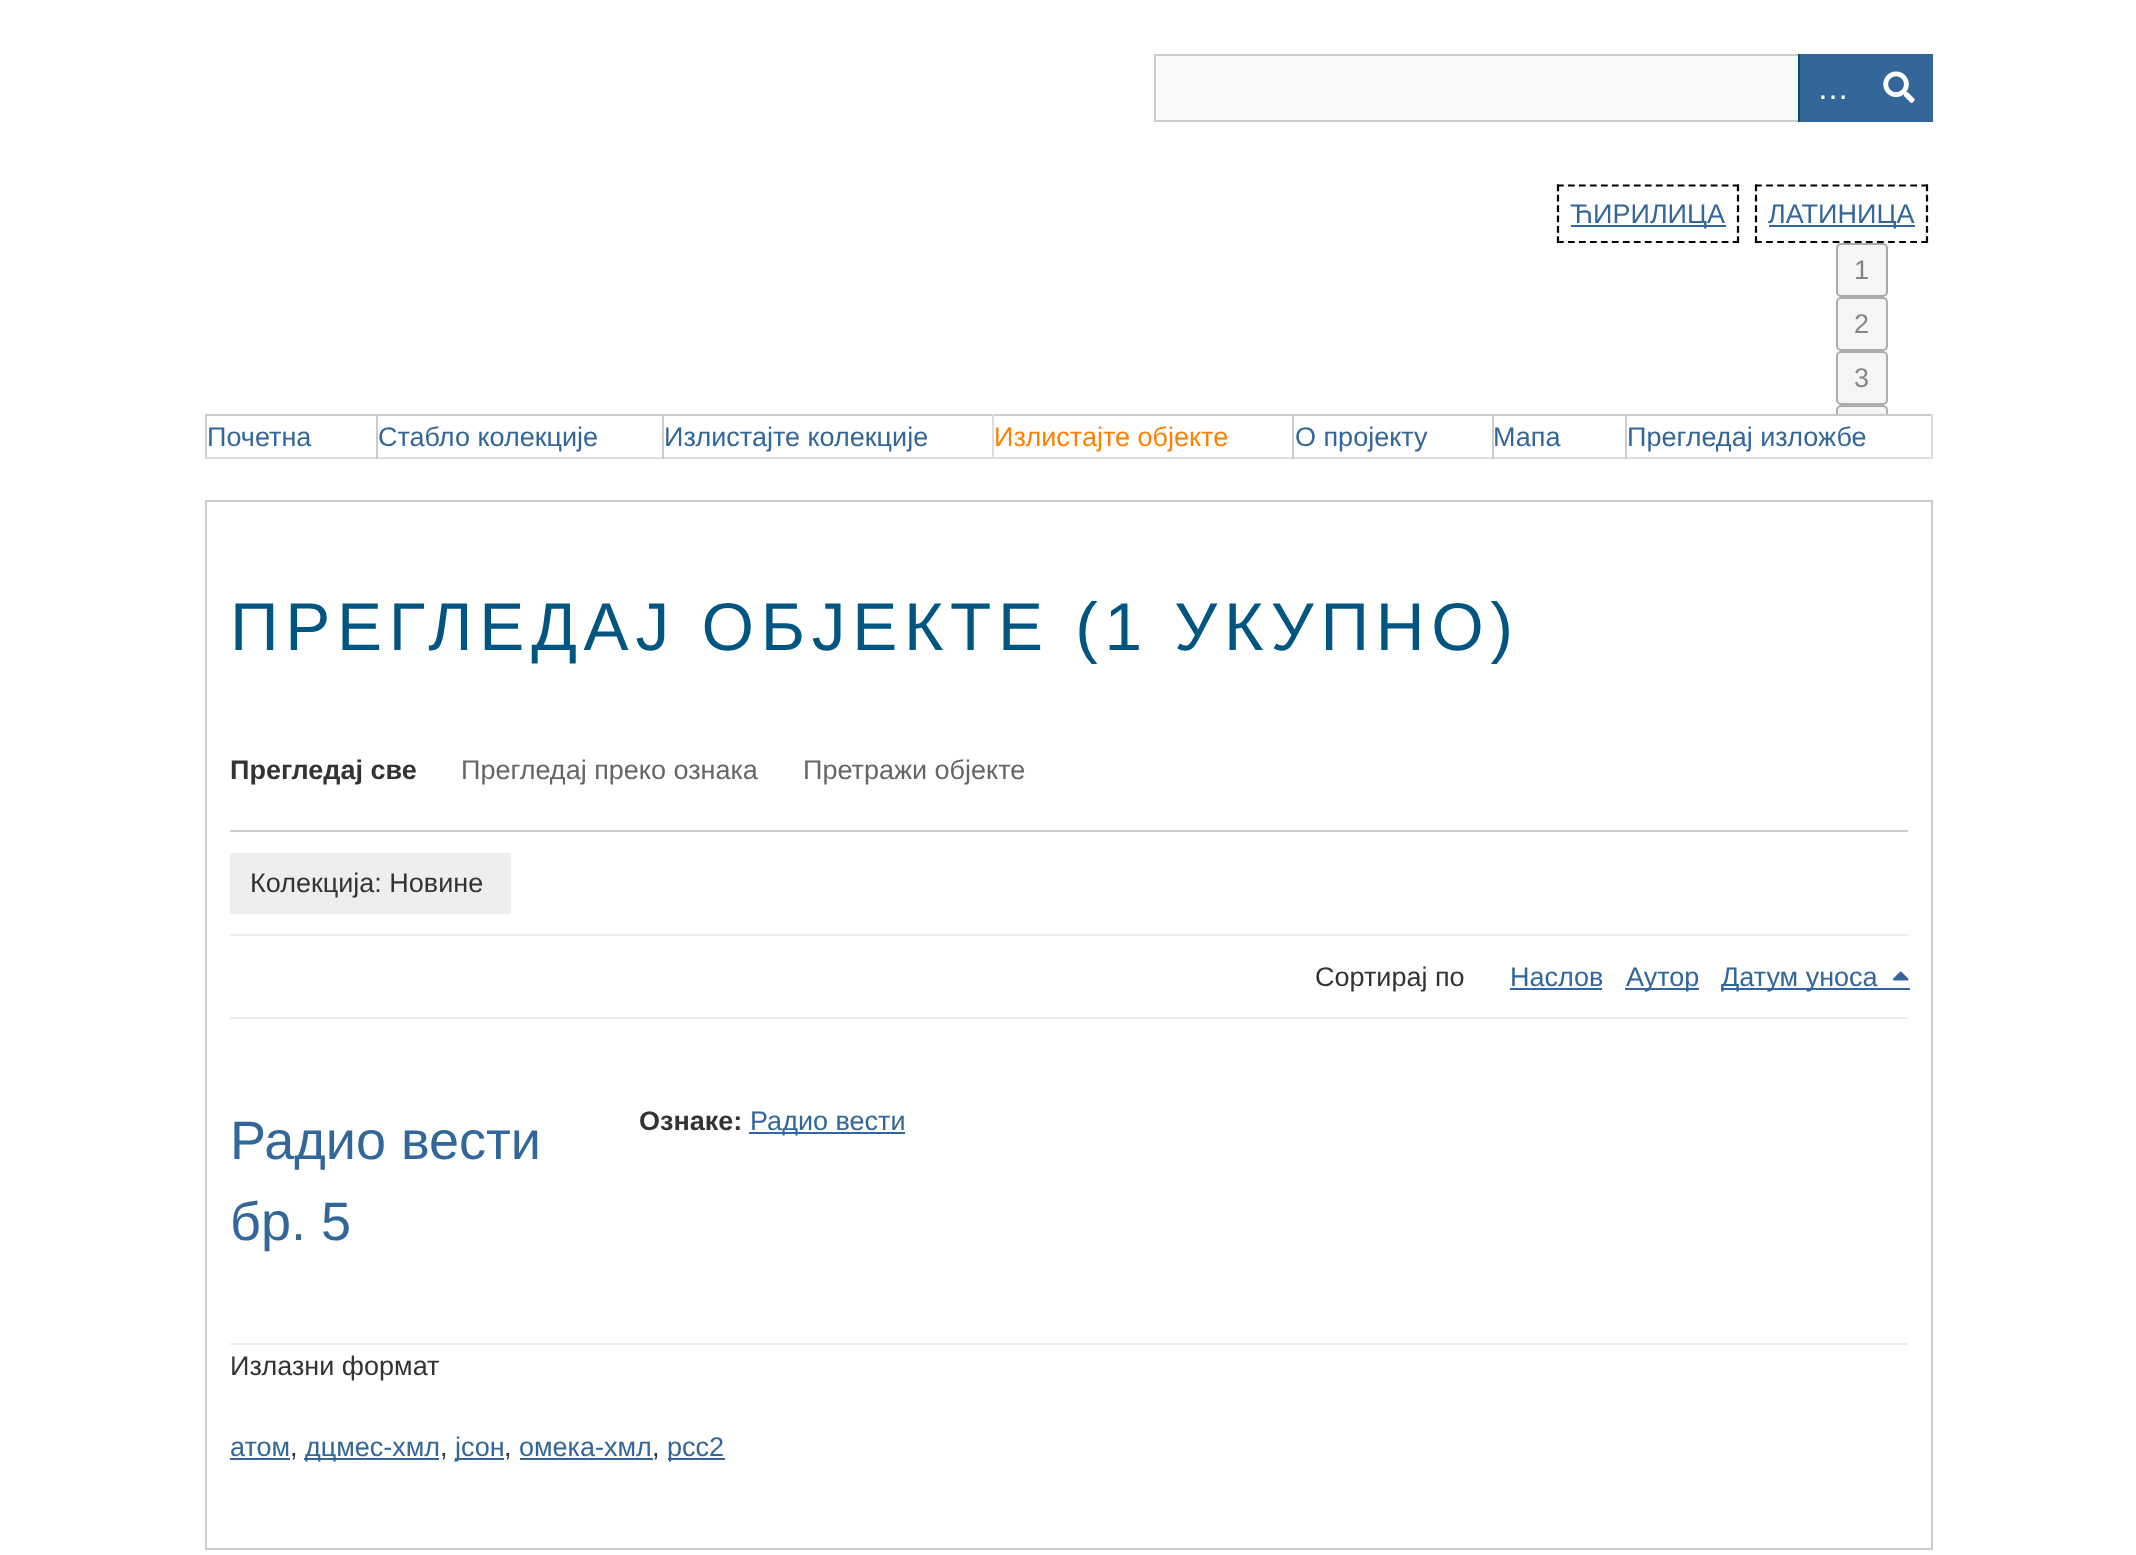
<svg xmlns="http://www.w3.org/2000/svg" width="2136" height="1555">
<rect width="100%" height="100%" fill="#fff"/>
<rect x="1156" y="56" width="642" height="64" fill="#fafafa"/>
<rect x="1155" y="55" width="777" height="66" fill="none" stroke="#ccc" stroke-width="2"/>
<rect x="1798" y="54" width="2" height="68" fill="#005177"/>
<rect x="1800" y="54" width="133" height="68" fill="#369"/>
<text x="1817" y="99" style="font-family:Liberation Sans;font-size:32px;fill:#fff">…</text>
<image x="1883" y="71" width="32" height="32" href="media/1.png"/>
<rect x="1571" y="225" width="155" height="2" fill="#369"/>
<text x="1570" y="223" style="font-family:Liberation Sans;font-size:27px;fill:#369">ЋИРИЛИЦА</text>
<path d="M1557 185.5h182" fill="none" stroke="#000" stroke-width="2.2" stroke-dasharray="6.75 4.23"/>
<path d="M1738 184.5v58.5" fill="none" stroke="#000" stroke-width="2.2" stroke-dasharray="6.75 3.6"/>
<path d="M1557 242h182" fill="none" stroke="#000" stroke-width="2.2" stroke-dasharray="6.75 4.23"/>
<path d="M1558 184.5v58.5" fill="none" stroke="#000" stroke-width="2.2" stroke-dasharray="6.75 3.6"/>
<rect x="1769" y="225" width="146" height="2" fill="#369"/>
<text x="1768" y="223" style="font-family:Liberation Sans;font-size:27px;fill:#369">ЛАТИНИЦА</text>
<path d="M1755 185.5h173" fill="none" stroke="#000" stroke-width="2.2" stroke-dasharray="6.75 4.34"/>
<path d="M1927 184.5v58.5" fill="none" stroke="#000" stroke-width="2.2" stroke-dasharray="6.75 3.6"/>
<path d="M1755 242h173" fill="none" stroke="#000" stroke-width="2.2" stroke-dasharray="6.75 4.34"/>
<path d="M1756 184.5v58.5" fill="none" stroke="#000" stroke-width="2.2" stroke-dasharray="6.75 3.6"/>
<rect x="1836" y="243" width="52" height="54" rx="5" fill="#efefef99"/>
<rect x="1837" y="244" width="50" height="52" rx="4" fill="none" stroke="#76767699" stroke-width="2"/>
<text x="1854" y="279" style="font-family:Liberation Sans;font-size:27px;fill:#858585">1</text>
<rect x="1837" y="298" width="50" height="52" rx="4" fill="#f5f5f5" stroke="#adadad" stroke-width="2"/>
<text x="1854" y="333" style="font-family:Liberation Sans;font-size:27px;fill:#858585">2</text>
<rect x="1837" y="352" width="50" height="52" rx="4" fill="#f5f5f5" stroke="#adadad" stroke-width="2"/>
<text x="1854" y="387" style="font-family:Liberation Sans;font-size:27px;fill:#858585">3</text>
<rect x="1837" y="406" width="50" height="52" rx="4" fill="#f5f5f5" stroke="#adadad" stroke-width="2"/>
<rect x="992" y="414" width="941" height="2" fill="#ccc"/>
<rect x="205" y="414" width="790" height="2" fill="#ccc"/>
<rect x="205" y="457" width="459" height="2" fill="#dedede"/>
<rect x="205" y="414" width="2" height="45" fill="#ccc"/>
<text x="207" y="446" style="font-family:Liberation Sans;font-size:27px;fill:#369">Почетна</text>
<rect x="376" y="414" width="2" height="45" fill="#ccc"/>
<text x="378" y="446" style="font-family:Liberation Sans;font-size:27px;fill:#369">Стабло колекције</text>
<rect x="992" y="457" width="635" height="2" fill="#dedede"/>
<rect x="992" y="414" width="2" height="45" fill="#dedede"/>
<rect x="662" y="457" width="333" height="2" fill="#dedede"/>
<rect x="662" y="414" width="2" height="45" fill="#ccc"/>
<text x="664" y="446" style="font-family:Liberation Sans;font-size:27px;fill:#369">Излистајте колекције</text>
<text x="994" y="446" style="font-family:Liberation Sans;font-size:27px;fill:#ff8000">Излистајте објекте</text>
<rect x="1292" y="414" width="2" height="45" fill="#ccc"/>
<text x="1295" y="446" style="font-family:Liberation Sans;font-size:27px;fill:#369">О пројекту</text>
<rect x="1492" y="414" width="2" height="45" fill="#ccc"/>
<text x="1493" y="446" style="font-family:Liberation Sans;font-size:27px;fill:#369">Мапа</text>
<rect x="1836" y="416" width="52" height="41" fill="#fff"/>
<rect x="1931" y="414" width="2" height="45" fill="#dedede"/>
<rect x="1625" y="457" width="308" height="2" fill="#dedede"/>
<rect x="1625" y="414" width="2" height="45" fill="#ccc"/>
<text x="1627" y="446" style="font-family:Liberation Sans;font-size:27px;fill:#369">Прегледај изложбе</text>
<rect x="206" y="501" width="1726" height="1048" fill="none" stroke="#ccc" stroke-width="2"/>
<text x="230" y="650" style="font-family:Liberation Sans;font-size:67.5px;letter-spacing:6.75px;fill:#015581">ПРЕГЛЕДАЈ ОБЈЕКТЕ (1 УКУПНО)</text>
<rect x="230" y="830" width="1678" height="2" fill="#ccc"/>
<text x="230" y="779" style="font-family:Liberation Sans;font-size:27px;font-weight:bold;fill:#333">Прегледај све</text>
<text x="461" y="779" style="font-family:Liberation Sans;font-size:27px;fill:#666">Прегледај преко ознака</text>
<text x="803" y="779" style="font-family:Liberation Sans;font-size:27px;fill:#666">Претражи објекте</text>
<rect x="230" y="934" width="1678" height="2" fill="#eee"/>
<rect x="230" y="853" width="281" height="61" fill="#eee"/>
<text x="250" y="892" style="font-family:Liberation Sans;font-size:27px;fill:#333">Колекција: Новине</text>
<text x="1315" y="986" style="font-family:Liberation Sans;font-size:27px;fill:#333">Сортирај по</text>
<text x="1510" y="986" style="font-family:Liberation Sans;font-size:27px;fill:#369">Наслов</text>
<rect x="1510" y="988" width="92" height="2" fill="#369"/>
<rect x="1625" y="988" width="74" height="2" fill="#369"/>
<text x="1626" y="986" style="font-family:Liberation Sans;font-size:27px;fill:#369">Аутор</text>
<rect x="1721" y="988" width="189" height="2" fill="#369"/>
<text x="1721" y="986" style="font-family:Liberation Sans;font-size:27px;fill:#369">Датум уноса</text>
<image x="1892" y="971" width="17" height="10" href="media/2.png"/>
<rect x="230" y="1017" width="1678" height="2" fill="#eee"/>
<rect x="230" y="1343" width="1678" height="2" fill="#eee"/>
<text x="230" y="1159" style="font-family:Liberation Sans;font-size:54px;fill:#369">Радио вести</text>
<text x="230" y="1240" style="font-family:Liberation Sans;font-size:54px;fill:#369">бр. 5</text>
<text x="639" y="1130" style="font-family:Liberation Sans;font-size:27px;font-weight:bold;fill:#333">Ознаке:</text>
<rect x="749" y="1132" width="156" height="2" fill="#369"/>
<text x="750" y="1130" style="font-family:Liberation Sans;font-size:27px;fill:#369">Радио вести</text>
<text x="230" y="1375" style="font-family:Liberation Sans;font-size:27px;fill:#333">Излазни формат</text>
<text x="230" y="1456" style="font-family:Liberation Sans;font-size:27px;fill:#369">атом</text>
<rect x="230" y="1458" width="60" height="2" fill="#369"/>
<text x="290" y="1456" style="font-family:Liberation Sans;font-size:27px;fill:#333">,</text>
<rect x="304" y="1458" width="135" height="2" fill="#369"/>
<text x="305" y="1456" style="font-family:Liberation Sans;font-size:27px;fill:#369">дцмес-xмл</text>
<text x="440" y="1456" style="font-family:Liberation Sans;font-size:27px;fill:#333">,</text>
<rect x="455" y="1458" width="49" height="2" fill="#369"/>
<text x="455" y="1456" style="font-family:Liberation Sans;font-size:27px;fill:#369">јсон</text>
<text x="504" y="1456" style="font-family:Liberation Sans;font-size:27px;fill:#333">,</text>
<text x="519" y="1456" style="font-family:Liberation Sans;font-size:27px;fill:#369">омека-xмл</text>
<rect x="520" y="1458" width="133" height="2" fill="#369"/>
<text x="652" y="1456" style="font-family:Liberation Sans;font-size:27px;fill:#333">,</text>
<rect x="668" y="1458" width="57" height="2" fill="#369"/>
<text x="667" y="1456" style="font-family:Liberation Sans;font-size:27px;fill:#369">рсс2</text>
</svg>
